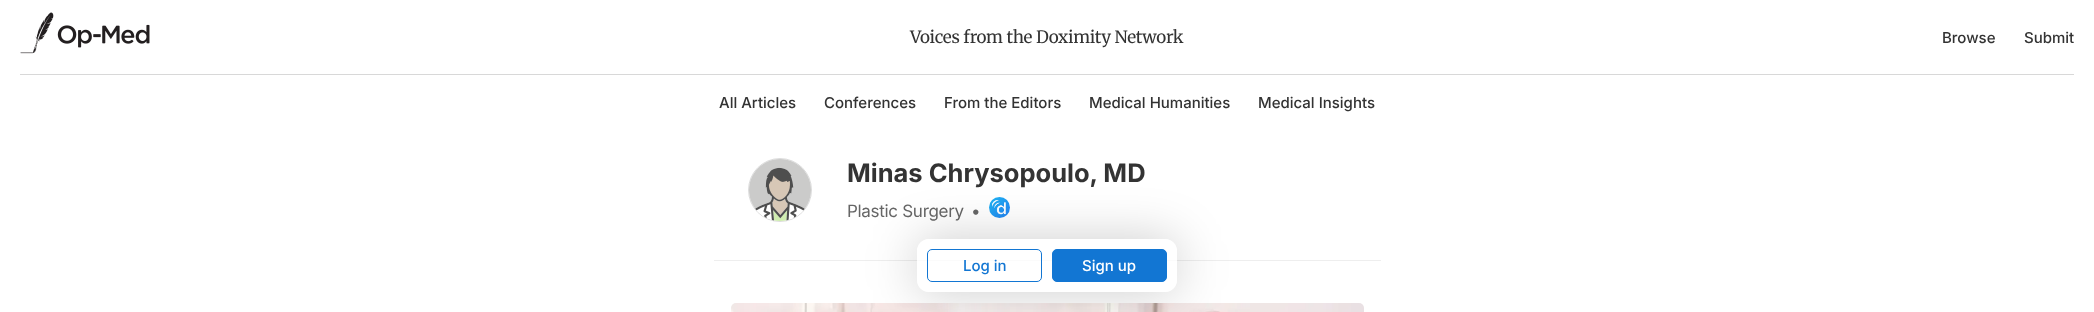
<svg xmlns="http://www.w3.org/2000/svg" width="2094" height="312">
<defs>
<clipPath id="clip1"><path d="M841 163h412v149h-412zm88 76h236c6.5 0 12 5.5 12 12v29c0 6.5-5.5 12-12 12h-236c-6.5 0-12-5.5-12-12v-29c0-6.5 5.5-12 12-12z" clip-rule="evenodd"/></clipPath>
</defs>
<rect width="100%" height="100%" fill="#fff"/>
<rect x="20" y="74" width="2054" height="1" fill="#d8d8d8"/>
<image x="20" y="12" width="130" height="42" href="media/1.png"/>
<text x="910" y="43" style="font-family:Merriweather;font-size:17px;letter-spacing:-0.3px;fill:#333">Voices from the Doximity Network</text>
<text x="1942" y="43" style="font-family:Inter;font-size:15px;font-weight:500;fill:#333">Browse</text>
<text x="2024" y="43" style="font-family:Inter;font-size:15px;font-weight:500;fill:#333">Submit</text>
<text x="719" y="108" style="font-family:Inter;font-size:15px;font-weight:500;fill:#333">All Articles</text>
<text x="824" y="108" style="font-family:Inter;font-size:15px;font-weight:500;fill:#333">Conferences</text>
<text x="944" y="108" style="font-family:Inter;font-size:15px;font-weight:500;fill:#333">From the Editors</text>
<text x="1089" y="108" style="font-family:Inter;font-size:15px;font-weight:500;fill:#333">Medical Humanities</text>
<text x="1258" y="108" style="font-family:Inter;font-size:15px;font-weight:500;fill:#333">Medical Insights</text>
<circle cx="780" cy="190" r="31.5" fill="none" stroke="#ddd"/>
<image x="749" y="159" width="62" height="62" href="media/2.png"/>
<text x="847" y="182" style="font-family:Inter;font-size:25.5px;font-weight:bold;fill:#333">Minas Chrysopoulo, MD</text>
<text x="847" y="217" style="font-family:Inter;font-size:17px;letter-spacing:-0.3px;fill:#666">Plastic Surgery</text>
<text x="971" y="217" style="font-family:Inter;font-size:17px;letter-spacing:-0.3px;fill:#666">•</text>
<image x="989" y="197" width="21" height="21" href="media/3.png"/>
<rect x="714" y="260" width="667" height="1" fill="#eee"/>
<image x="731" y="303" width="633" height="9" href="media/4.png"/>
<g clip-path="url(#clip1)">
<rect x="917" y="239" width="260" height="53" rx="12" fill="#00000033" filter="blur(25px)"/>
</g>
<rect x="917" y="239" width="260" height="53" rx="12" fill="#ffffffbf"/>
<rect x="927.5" y="249.5" width="114" height="32" rx="4.5" fill="none" stroke="#1276d3"/>
<text x="963" y="271" style="font-family:Inter;font-size:15px;font-weight:500;fill:#1276d3">Log in</text>
<rect x="1052.5" y="249.5" width="114" height="32" rx="4.5" fill="#1276d3" stroke="#1276d3"/>
<text x="1082" y="271" style="font-family:Inter;font-size:15px;font-weight:500;fill:#fff">Sign up</text>
</svg>
